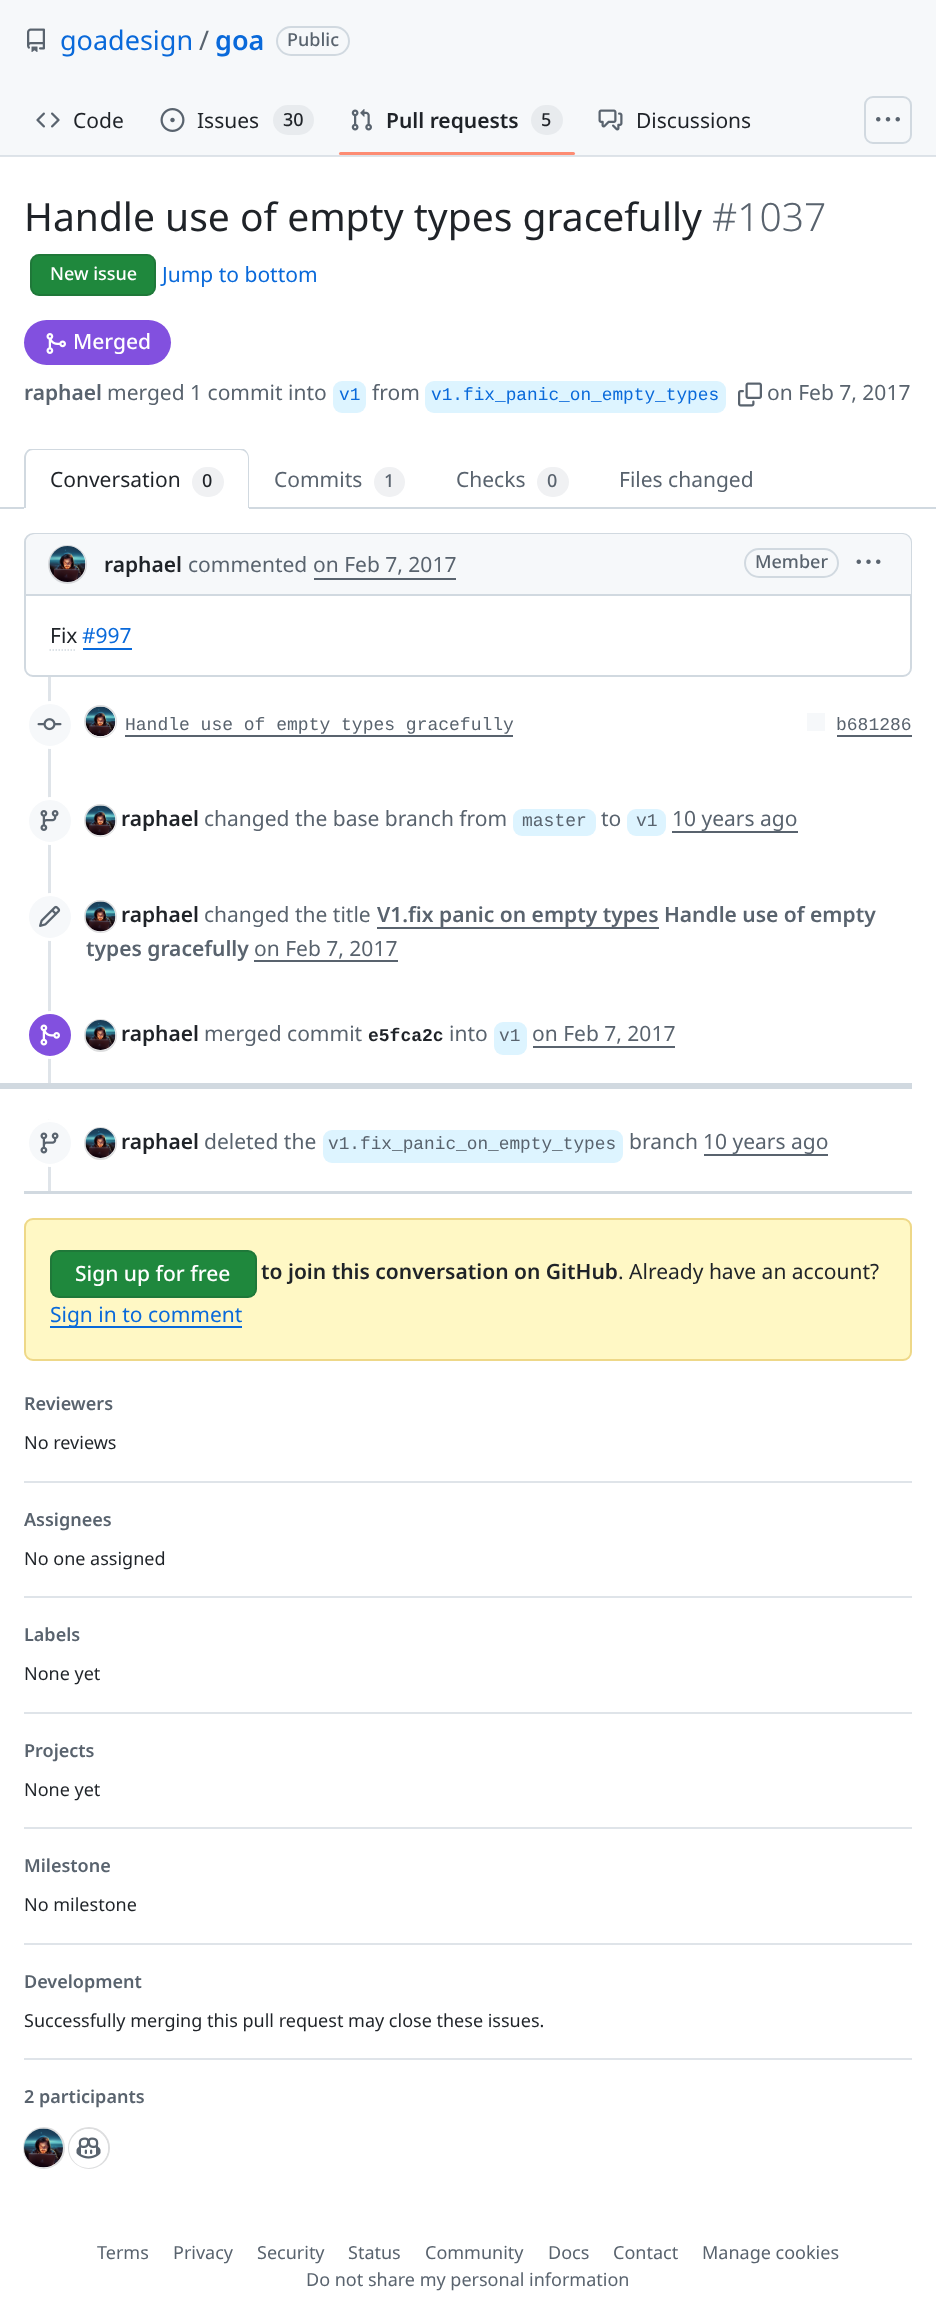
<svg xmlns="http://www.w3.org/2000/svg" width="936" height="2301">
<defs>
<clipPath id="clip1"><rect x="24" y="449" width="888" height="60"/></clipPath>
</defs>
<rect width="100%" height="100%" fill="#fff"/>
<rect y="156" width="936" height="1" fill="#dfe4e9"/>
<rect width="936" height="155" fill="#f6f8fa"/>
<rect y="155" width="936" height="1" fill="#dce2e8"/>
<image x="27" y="28" width="18" height="24" href="media/1.png"/>
<text x="60" y="50" style="font-family:Noto Sans;font-size:27px;fill:#0969da">goadesign</text>
<text x="199" y="50" style="font-family:Noto Sans;font-size:27px;fill:#59636e">/</text>
<text x="215" y="50" style="font-family:Noto Sans;font-size:27px;font-weight:600;fill:#0969da">goa</text>
<rect x="277" y="27" width="72" height="28" rx="14" fill="none" stroke="#d1d9e0" stroke-width="2"/>
<text x="287" y="46" style="font-family:Noto Sans;font-size:18px;font-weight:500;fill:#59636e">Public</text>
<image x="36" y="112" width="24" height="16" href="media/2.png"/>
<text x="73" y="128" style="font-family:Noto Sans;font-size:21px;fill:#1f2328">Code</text>
<image x="160" y="108" width="25" height="24" href="media/3.png"/>
<text x="197" y="128" style="font-family:Noto Sans;font-size:21px;fill:#1f2328">Issues</text>
<rect x="273" y="105" width="41" height="30" rx="15" fill="#e8ebee"/>
<text x="283" y="126" style="font-family:Noto Sans;font-size:18px;font-weight:500;fill:#1f2328">30</text>
<image x="351" y="109" width="21" height="22" href="media/4.png"/>
<text x="386" y="128" style="font-family:Noto Sans;font-size:21px;font-weight:600;fill:#1f2328">Pull requests</text>
<rect x="531" y="105" width="32" height="30" rx="15" fill="#e8ebee"/>
<text x="541" y="126" style="font-family:Noto Sans;font-size:18px;font-weight:500;fill:#1f2328">5</text>
<rect x="339" y="152" width="236" height="3" rx="1.5" fill="#fd8c73"/>
<image x="598" y="109" width="25" height="22" href="media/5.png"/>
<text x="636" y="128" style="font-family:Noto Sans;font-size:21px;fill:#1f2328">Discussions</text>
<rect x="865" y="97" width="46" height="46" rx="8" fill="none" stroke="#d1d9e0" stroke-width="2"/>
<image x="876" y="117" width="24" height="5" href="media/6.png"/>
<text x="24" y="231" style="font-family:Noto Sans;font-size:39px;fill:#1f2328">Handle use of empty types gracefully</text>
<text x="712" y="231" style="font-family:Noto Sans;font-size:39px;font-weight:300;fill:#59636e">#1037</text>
<rect x="30" y="254" width="126" height="42" rx="9" fill="#1f883d"/>
<rect x="31" y="255" width="124" height="40" rx="8" fill="none" stroke="#1f232826" stroke-width="2"/>
<text x="50" y="280" style="font-family:Noto Sans;font-size:18px;font-weight:500;fill:#fff">New issue</text>
<text x="162" y="282" style="font-family:Noto Sans;font-size:21px;fill:#0969da">Jump to bottom</text>
<rect x="24" y="320" width="147" height="45" rx="22.5" fill="#8250df"/>
<image x="46" y="333" width="20" height="21" href="media/7.png"/>
<text x="73" y="349" style="font-family:Noto Sans;font-size:21px;font-weight:500;fill:#fff">Merged</text>
<text x="24" y="400" style="font-family:Noto Sans;font-size:21px;font-weight:600;fill:#59636e">raphael</text>
<text x="107" y="400" style="font-family:Noto Sans;font-size:21px;fill:#59636e">merged 1 commit into</text>
<rect x="333" y="381" width="33" height="32" rx="9" fill="#ddf4ff"/>
<text x="339" y="400" style="font-family:Liberation Mono;font-size:17.8px;fill:#0969da">v1</text>
<text x="372" y="400" style="font-family:Noto Sans;font-size:21px;fill:#59636e">from</text>
<rect x="425" y="381" width="301" height="32" rx="9" fill="#ddf4ff"/>
<text x="431" y="400" style="font-family:Liberation Mono;font-size:17.8px;fill:#0969da">v1.fix_panic_on_empty_types</text>
<image x="738" y="382" width="24" height="25" href="media/8.png"/>
<text x="767" y="400" style="font-family:Noto Sans;font-size:21px;fill:#59636e">on Feb 7, 2017</text>
<rect y="507" width="936" height="2" fill="#d1d9e0"/>
<path d="M33 449h207c5 0 9 4 9 9v51h-225v-51c0-5 4-9 9-9z" fill="#fff"/>
<g clip-path="url(#clip1)">
<path d="M33 448h207c5 0 9 5 9 10v50h-225v-50c0-5 4-10 9-10zm0 2h207c4 0 8 3 8 8v50h-222v-50c0-5 3-8 7-8z" fill="#d1d9e0" fill-rule="evenodd"/>
</g>
<text x="50" y="487" style="font-family:Noto Sans;font-size:21px;fill:#1f2328">Conversation</text>
<rect x="192" y="467" width="32" height="30" rx="15" fill="#f0f1f3"/>
<text x="202" y="487" style="font-family:Noto Sans;font-size:18px;font-weight:500;fill:#1f2328">0</text>
<text x="274" y="487" style="font-family:Noto Sans;font-size:21px;fill:#59636e">Commits</text>
<rect x="374" y="467" width="31" height="30" rx="15" fill="#f0f1f3"/>
<text x="384" y="487" style="font-family:Noto Sans;font-size:18px;font-weight:500;fill:#59636e">1</text>
<text x="456" y="487" style="font-family:Noto Sans;font-size:21px;fill:#59636e">Checks</text>
<rect x="537" y="467" width="32" height="30" rx="15" fill="#f0f1f3"/>
<text x="547" y="487" style="font-family:Noto Sans;font-size:18px;font-weight:500;fill:#59636e">0</text>
<text x="619" y="487" style="font-family:Noto Sans;font-size:21px;fill:#59636e">Files changed</text>
<rect x="25" y="534" width="886" height="142" rx="8" fill="none" stroke="#d1d9e0" stroke-width="2"/>
<path d="M35 534h867c5 0 9 4 9 9v53h-885v-53c0-5 4-9 9-9z" fill="#f6f8fa"/>
<rect x="26" y="594" width="885" height="2" fill="#d1d9e0"/>
<circle cx="67.5" cy="564.5" r="18.5" fill="none" stroke="#d6d8db" stroke-width="2"/>
<circle cx="68" cy="564" r="18" fill="#fff"/>
<image x="49" y="546" width="37" height="36" href="media/9.png"/>
<text x="104" y="572" style="font-family:Noto Sans;font-size:21px;font-weight:600;fill:#1f2328">raphael</text>
<text x="188" y="572" style="font-family:Noto Sans;font-size:21px;fill:#59636e">commented</text>
<text x="313" y="572" style="font-family:Noto Sans;font-size:21px;fill:#59636e">on Feb 7, 2017</text>
<rect x="314" y="578" width="142" height="2" fill="#59636e"/>
<rect x="745" y="549" width="93" height="28" rx="14" fill="none" stroke="#d1d9e0" stroke-width="2"/>
<text x="755" y="568" style="font-family:Noto Sans;font-size:18px;font-weight:500;fill:#59636e">Member</text>
<image x="856" y="559" width="25" height="5" href="media/10.png"/>
<text x="50" y="643" style="font-family:Noto Sans;font-size:21px;fill:#1f2328">Fix</text>
<path d="M49.5 650h27" fill="none" stroke="#d1d9e0" stroke-width="1.5" stroke-dasharray="1.5 1.5"/>
<text x="82" y="643" style="font-family:Noto Sans;font-size:21px;fill:#0969da">#997</text>
<rect x="83" y="648" width="49" height="2" fill="#0969da"/>
<rect x="48" y="677" width="3" height="406" fill="#dfe4e9"/>
<circle cx="50" cy="725" r="22.5" fill="#f6f8fa" stroke="#fff" stroke-width="3"/>
<image x="37" y="718" width="25" height="13" href="media/11.png"/>
<circle cx="100.5" cy="721.5" r="15.5" fill="none" stroke="#dddedf" stroke-width="2"/>
<circle cx="101" cy="722" r="15" fill="#fff"/>
<image x="85" y="706" width="31" height="31" href="media/12.png"/>
<text x="125" y="730" style="font-family:Liberation Mono;font-size:18px;fill:#59636e">Handle use of empty types gracefully</text>
<rect x="125" y="735" width="388" height="2" fill="#59636e"/>
<rect x="807" y="713" width="18" height="18" fill="#f6f8fa"/>
<text x="836" y="730" style="font-family:Liberation Mono;font-size:18px;fill:#59636e">b681286</text>
<rect x="837" y="735" width="75" height="2" fill="#59636e"/>
<circle cx="50" cy="821" r="22.5" fill="#f6f8fa" stroke="#fff" stroke-width="3"/>
<image x="40" y="810" width="19" height="21" href="media/13.png"/>
<circle cx="100.5" cy="820.5" r="15.5" fill="none" stroke="#dddedf" stroke-width="2"/>
<circle cx="101" cy="821" r="15" fill="#fff"/>
<image x="85" y="805" width="31" height="31" href="media/14.png"/>
<text x="121" y="826" style="font-family:Noto Sans;font-size:21px;font-weight:600;fill:#1f2328">raphael</text>
<text x="204" y="826" style="font-family:Noto Sans;font-size:21px;fill:#59636e">changed the base branch from</text>
<rect x="513" y="809" width="83" height="27" rx="9" fill="#ddf4ff"/>
<text x="522" y="826" style="font-family:Liberation Mono;font-size:18px;fill:#59636e">master</text>
<text x="601" y="826" style="font-family:Noto Sans;font-size:21px;fill:#59636e">to</text>
<rect x="627" y="809" width="39" height="27" rx="9" fill="#ddf4ff"/>
<text x="636" y="826" style="font-family:Liberation Mono;font-size:18px;fill:#59636e">v1</text>
<rect x="672" y="831" width="126" height="2" fill="#59636e"/>
<text x="672" y="826" style="font-family:Noto Sans;font-size:21px;fill:#59636e">10 years ago</text>
<circle cx="50" cy="917" r="22.5" fill="#f6f8fa" stroke="#fff" stroke-width="3"/>
<image x="39" y="905" width="22" height="22" href="media/15.png"/>
<circle cx="100.5" cy="916.5" r="15.5" fill="none" stroke="#dddedf" stroke-width="2"/>
<circle cx="101" cy="917" r="15" fill="#fff"/>
<image x="85" y="901" width="31" height="31" href="media/16.png"/>
<text x="121" y="922" style="font-family:Noto Sans;font-size:21px;font-weight:600;fill:#1f2328">raphael</text>
<text x="204" y="922" style="font-family:Noto Sans;font-size:21px;fill:#59636e">changed the title</text>
<rect x="377" y="927" width="282" height="2" fill="#59636e"/>
<text x="377" y="922" style="font-family:Noto Sans;font-size:21px;font-weight:600;fill:#59636e">V1.fix panic on empty types Handle use of empty</text>
<text x="86" y="956" style="font-family:Noto Sans;font-size:21px;font-weight:600;fill:#59636e">types gracefully</text>
<text x="254" y="956" style="font-family:Noto Sans;font-size:21px;fill:#59636e">on Feb 7, 2017</text>
<rect x="254" y="960" width="144" height="2" fill="#59636e"/>
<circle cx="50" cy="1035" r="22.5" fill="#8250df" stroke="#fff" stroke-width="3"/>
<image x="40" y="1024" width="20" height="22" href="media/17.png"/>
<circle cx="100.5" cy="1035.5" r="15.5" fill="none" stroke="#dddedf" stroke-width="2"/>
<circle cx="101" cy="1035" r="15" fill="#fff"/>
<image x="85" y="1020" width="31" height="30" href="media/18.png"/>
<text x="121" y="1041" style="font-family:Noto Sans;font-size:21px;font-weight:600;fill:#1f2328">raphael</text>
<text x="204" y="1041" style="font-family:Noto Sans;font-size:21px;fill:#59636e">merged commit</text>
<text x="368" y="1041" style="font-family:Liberation Mono;font-size:18px;font-weight:bold;fill:#1f2328">e5fca2c</text>
<text x="449" y="1041" style="font-family:Noto Sans;font-size:21px;fill:#59636e">into</text>
<rect x="494" y="1022" width="33" height="33" rx="9" fill="#ddf4ff"/>
<text x="499" y="1041" style="font-family:Liberation Mono;font-size:17.8px;fill:#59636e">v1</text>
<text x="532" y="1041" style="font-family:Noto Sans;font-size:21px;fill:#59636e">on Feb 7, 2017</text>
<rect x="533" y="1046" width="142" height="2" fill="#59636e"/>
<rect y="1083" width="912" height="6" fill="#d1d9e0"/>
<rect x="48" y="1119" width="3" height="72" fill="#dfe4e9"/>
<circle cx="50" cy="1143" r="22.5" fill="#f6f8fa" stroke="#fff" stroke-width="3"/>
<image x="40" y="1132" width="19" height="22" href="media/19.png"/>
<circle cx="100.5" cy="1143.5" r="15.5" fill="none" stroke="#dddedf" stroke-width="2"/>
<circle cx="101" cy="1143" r="15" fill="#fff"/>
<image x="85" y="1128" width="31" height="30" href="media/18.png"/>
<text x="121" y="1149" style="font-family:Noto Sans;font-size:21px;font-weight:600;fill:#1f2328">raphael</text>
<text x="204" y="1149" style="font-family:Noto Sans;font-size:21px;fill:#59636e">deleted the</text>
<rect x="323" y="1130" width="300" height="33" rx="9" fill="#ddf4ff"/>
<text x="328" y="1149" style="font-family:Liberation Mono;font-size:17.8px;fill:#59636e">v1.fix_panic_on_empty_types</text>
<text x="629" y="1149" style="font-family:Noto Sans;font-size:21px;fill:#59636e">branch</text>
<rect x="704" y="1154" width="124" height="2" fill="#59636e"/>
<text x="703" y="1149" style="font-family:Noto Sans;font-size:21px;fill:#59636e">10 years ago</text>
<rect x="24" y="1191" width="888" height="3" fill="#d1d9e0"/>
<rect x="24" y="1218" width="888" height="143" rx="9" fill="#fff8c5"/>
<rect x="25" y="1219" width="886" height="141" rx="8" fill="none" stroke="#d4a72c66" stroke-width="2"/>
<rect x="50" y="1250" width="207" height="48" rx="9" fill="#1f883d"/>
<rect x="51" y="1251" width="205" height="46" rx="8" fill="none" stroke="#1f232826" stroke-width="2"/>
<text x="75" y="1281" style="font-family:Noto Sans;font-size:21px;font-weight:500;fill:#fff">Sign up for free</text>
<text x="261" y="1279" style="font-family:Noto Sans;font-size:21px;font-weight:600;fill:#1f2328">to join this conversation on GitHub</text>
<text x="618" y="1279" style="font-family:Noto Sans;font-size:21px;fill:#1f2328">. Already have an account?</text>
<rect x="50" y="1326" width="192" height="2" fill="#0969da"/>
<text x="50" y="1322" style="font-family:Noto Sans;font-size:21px;fill:#0969da">Sign in to comment</text>
<text x="24" y="1410" style="font-family:Noto Sans;font-size:18px;font-weight:600;fill:#59636e">Reviewers</text>
<text x="24" y="1449" style="font-family:Noto Sans;font-size:18px;fill:#1f2328">No reviews</text>
<rect x="24" y="1481" width="888" height="2" fill="#dfe4e9"/>
<text x="24" y="1526" style="font-family:Noto Sans;font-size:18px;font-weight:600;fill:#59636e">Assignees</text>
<text x="24" y="1565" style="font-family:Noto Sans;font-size:18px;fill:#1f2328">No one assigned</text>
<rect x="24" y="1596" width="888" height="2" fill="#dfe4e9"/>
<text x="24" y="1641" style="font-family:Noto Sans;font-size:18px;font-weight:600;fill:#59636e">Labels</text>
<text x="24" y="1680" style="font-family:Noto Sans;font-size:18px;fill:#1f2328">None yet</text>
<rect x="24" y="1712" width="888" height="2" fill="#dfe4e9"/>
<text x="24" y="1757" style="font-family:Noto Sans;font-size:18px;font-weight:600;fill:#59636e">Projects</text>
<text x="24" y="1796" style="font-family:Noto Sans;font-size:18px;fill:#1f2328">None yet</text>
<rect x="24" y="1827" width="888" height="2" fill="#dfe4e9"/>
<text x="24" y="1872" style="font-family:Noto Sans;font-size:18px;font-weight:600;fill:#59636e">Milestone</text>
<text x="24" y="1911" style="font-family:Noto Sans;font-size:18px;fill:#1f2328">No milestone</text>
<rect x="24" y="1943" width="888" height="2" fill="#dfe4e9"/>
<text x="24" y="1988" style="font-family:Noto Sans;font-size:18px;font-weight:600;fill:#59636e">Development</text>
<text x="24" y="2027" style="font-family:Noto Sans;font-size:18px;fill:#1f2328">Successfully merging this pull request may close these issues.</text>
<rect x="24" y="2058" width="888" height="2" fill="#dfe4e9"/>
<text x="24" y="2103" style="font-family:Noto Sans;font-size:18px;font-weight:600;fill:#59636e">2 participants</text>
<circle cx="44" cy="2148" r="20" fill="none" stroke="#dddedf" stroke-width="2"/>
<circle cx="43.5" cy="2148.5" r="19.5" fill="#fff"/>
<image x="24" y="2128" width="39" height="40" href="media/20.png"/>
<circle cx="89" cy="2148" r="20" fill="none" stroke="#dddedf" stroke-width="2"/>
<circle cx="88.5" cy="2148.5" r="19.5" fill="#fff"/>
<image x="76" y="2137" width="25" height="22" href="media/21.png"/>
<text x="97" y="2259" style="font-family:Noto Sans;font-size:18px;fill:#59636e">Terms</text>
<text x="173" y="2259" style="font-family:Noto Sans;font-size:18px;fill:#59636e">Privacy</text>
<text x="257" y="2259" style="font-family:Noto Sans;font-size:18px;fill:#59636e">Security</text>
<text x="348" y="2259" style="font-family:Noto Sans;font-size:18px;fill:#59636e">Status</text>
<text x="425" y="2259" style="font-family:Noto Sans;font-size:18px;fill:#59636e">Community</text>
<text x="548" y="2259" style="font-family:Noto Sans;font-size:18px;fill:#59636e">Docs</text>
<text x="613" y="2259" style="font-family:Noto Sans;font-size:18px;fill:#59636e">Contact</text>
<text x="702" y="2259" style="font-family:Noto Sans;font-size:18px;fill:#59636e">Manage cookies</text>
<text x="306" y="2286" style="font-family:Noto Sans;font-size:18px;fill:#59636e">Do not share my personal information</text>
</svg>
